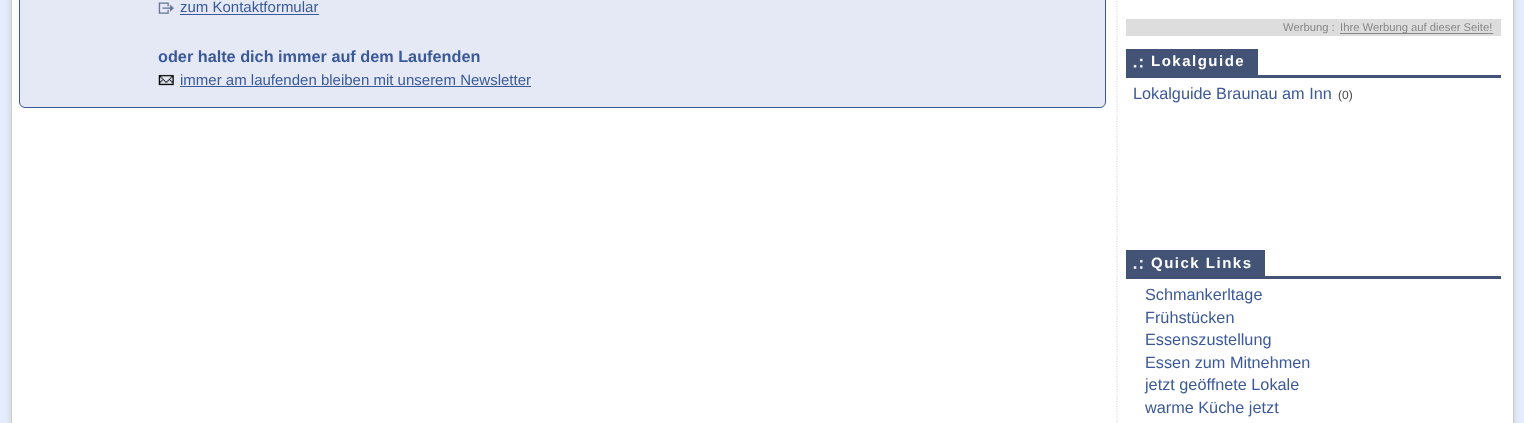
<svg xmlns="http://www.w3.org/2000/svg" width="1524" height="423">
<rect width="100%" height="100%" fill="#e4edff"/>
<rect x="11" y="-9" width="1503" height="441" fill="#ccc" filter="blur(3px)"/>
<rect x="11.5" y="-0.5" width="1502" height="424" fill="#fff" stroke="#ccc"/>
<rect x="19.5" y="-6.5" width="1086" height="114" rx="5.5" fill="#e4e9f5" stroke="#3b5998"/>
<image x="158" y="2" width="16" height="12" href="media/1.png"/>
<text x="180" y="12" style="font-family:Liberation Sans;font-size:15px;fill:#3b5998">zum Kontaktformular</text>
<rect x="180" y="14" width="139" height="1" fill="#3b5998"/>
<text x="158" y="62" style="font-family:Liberation Sans;font-size:16.25px;font-weight:bold;fill:#3b5998">oder halte dich immer auf dem Laufenden</text>
<image x="158" y="74" width="16" height="12" href="media/2.png"/>
<text x="180" y="85" style="font-family:Liberation Sans;font-size:15px;fill:#3b5998">immer am laufenden bleiben mit unserem Newsletter</text>
<rect x="180" y="86" width="351" height="1" fill="#3b5998"/>
<path d="M1117-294v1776.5" fill="none" stroke="#ddd" stroke-width="1.2" stroke-dasharray="1.25 1.25"/>
<rect x="1126" y="19" width="375" height="17" fill="#ddd"/>
<text x="1283" y="31" style="font-family:Liberation Sans;font-size:11.25px;fill:#888">Werbung :</text>
<rect x="1340" y="33" width="153" height="1" fill="#888"/>
<text x="1340" y="31" style="font-family:Liberation Sans;font-size:11.25px;fill:#888">Ihre Werbung auf dieser Seite!</text>
<rect x="1258" y="75" width="243" height="3" fill="#425376"/>
<rect x="1126" y="49" width="132" height="29" fill="#425376"/>
<image x="1133" y="58" width="10" height="10" href="media/3.png"/>
<text x="1151" y="66" style="font-family:Liberation Sans;font-size:15px;font-weight:bold;letter-spacing:1.5px;fill:#fff">Lokalguide</text>
<text x="1133" y="99" style="font-family:Liberation Sans;font-size:16.25px;fill:#3b5998">Lokalguide Braunau am Inn</text>
<text x="1338" y="99" style="font-family:Liberation Sans;font-size:12px;fill:#444">(0)</text>
<rect x="1265" y="276" width="236" height="3" fill="#425376"/>
<rect x="1126" y="250" width="139" height="29" fill="#425376"/>
<image x="1133" y="259" width="10" height="10" href="media/4.png"/>
<text x="1151" y="268" style="font-family:Liberation Sans;font-size:15px;font-weight:bold;letter-spacing:1.5px;fill:#fff">Quick Links</text>
<text x="1145" y="300" style="font-family:Liberation Sans;font-size:16.25px;fill:#3b5998">Schmankerltage</text>
<text x="1145" y="323" style="font-family:Liberation Sans;font-size:16.25px;fill:#3b5998">Frühstücken</text>
<text x="1145" y="345" style="font-family:Liberation Sans;font-size:16.25px;fill:#3b5998">Essenszustellung</text>
<text x="1145" y="368" style="font-family:Liberation Sans;font-size:16.25px;fill:#3b5998">Essen zum Mitnehmen</text>
<text x="1145" y="390" style="font-family:Liberation Sans;font-size:16.25px;fill:#3b5998">jetzt geöffnete Lokale</text>
<text x="1145" y="413" style="font-family:Liberation Sans;font-size:16.25px;fill:#3b5998">warme Küche jetzt</text>
</svg>
